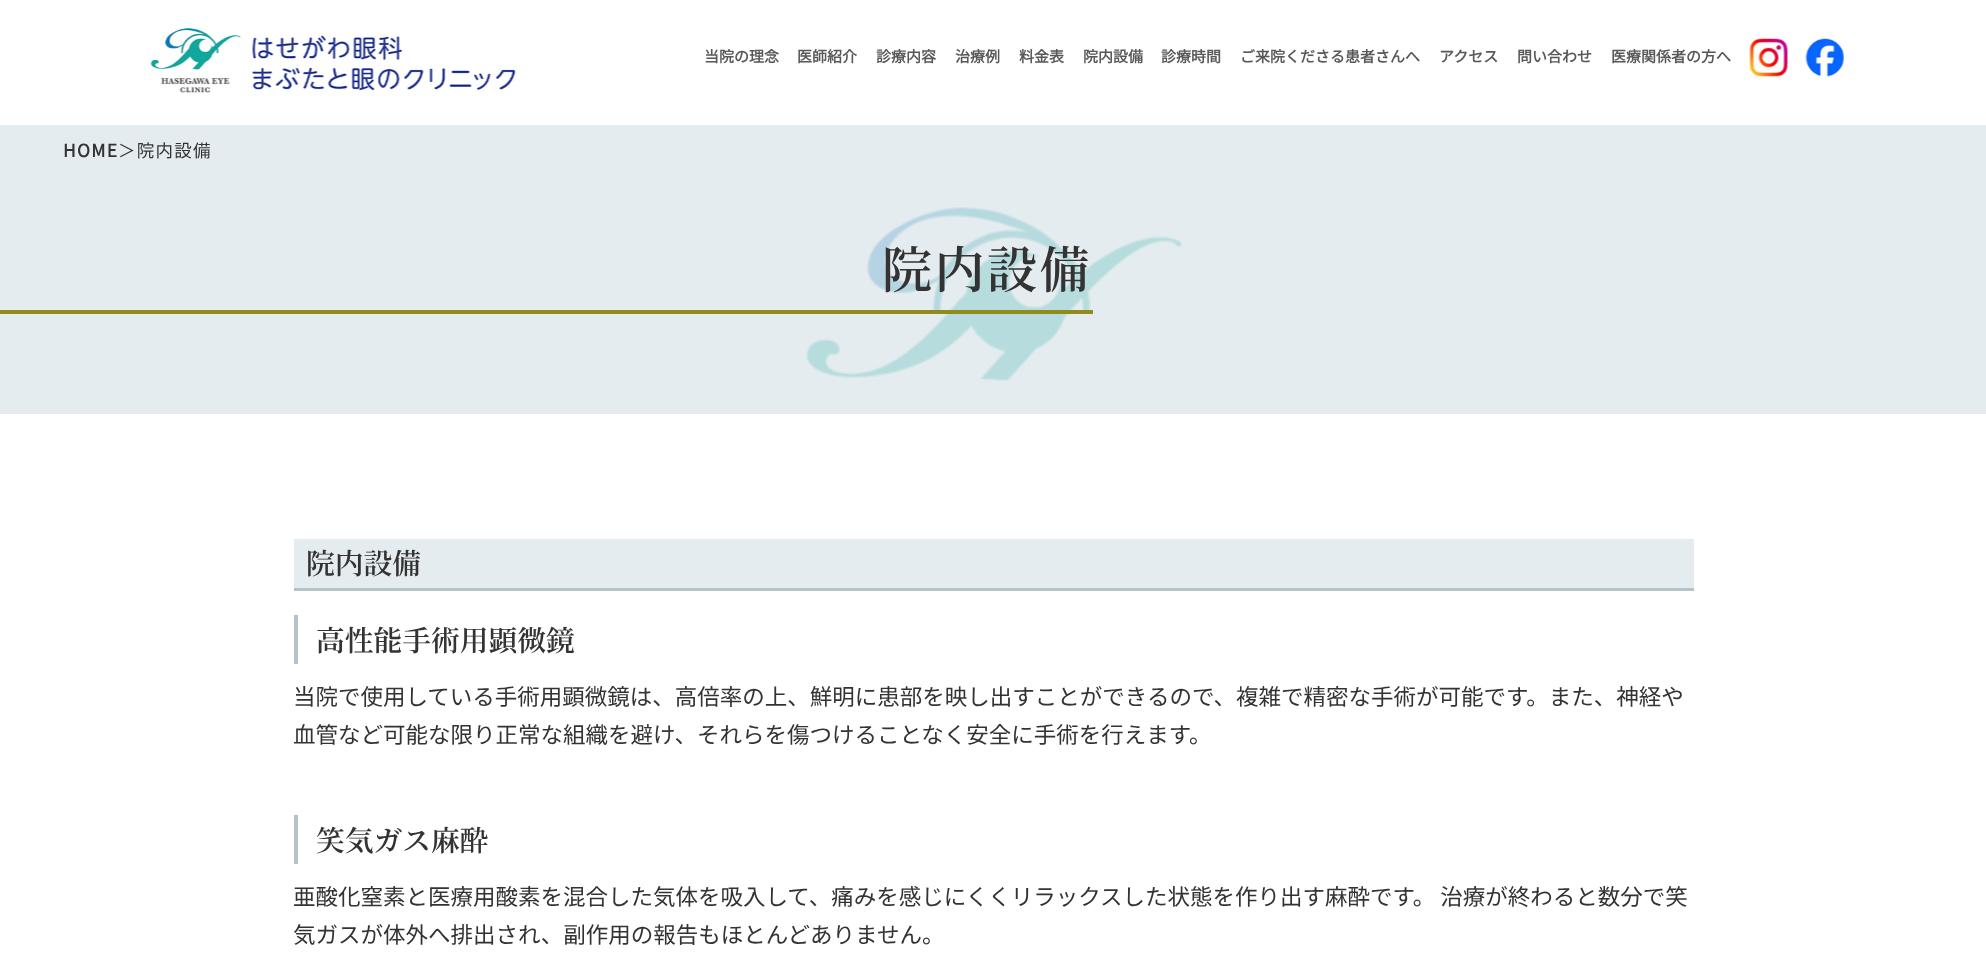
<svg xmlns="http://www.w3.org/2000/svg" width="1986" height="969">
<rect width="100%" height="100%" fill="#fff"/>
<image x="150" y="28" width="366" height="65" href="media/1.png"/>
<text x="704" y="62" style="font-family:Noto Sans JP;font-size:15px;font-weight:bold;fill:#595757">当院の理念</text>
<text x="797" y="62" style="font-family:Noto Sans JP;font-size:15px;font-weight:bold;fill:#595757">医師紹介</text>
<text x="876" y="62" style="font-family:Noto Sans JP;font-size:15px;font-weight:bold;fill:#595757">診療内容</text>
<text x="955" y="62" style="font-family:Noto Sans JP;font-size:15px;font-weight:bold;fill:#595757">治療例</text>
<text x="1019" y="62" style="font-family:Noto Sans JP;font-size:15px;font-weight:bold;fill:#595757">料金表</text>
<text x="1083" y="62" style="font-family:Noto Sans JP;font-size:15px;font-weight:bold;fill:#595757">院内設備</text>
<text x="1161" y="62" style="font-family:Noto Sans JP;font-size:15px;font-weight:bold;fill:#595757">診療時間</text>
<text x="1240" y="62" style="font-family:Noto Sans JP;font-size:15px;font-weight:bold;fill:#595757">ご来院くださる患者さんへ</text>
<text x="1439" y="62" style="font-family:Noto Sans JP;font-size:15px;font-weight:bold;fill:#595757">アクセス</text>
<text x="1517" y="62" style="font-family:Noto Sans JP;font-size:15px;font-weight:bold;fill:#595757">問い合わせ</text>
<text x="1611" y="62" style="font-family:Noto Sans JP;font-size:15px;font-weight:bold;fill:#595757">医療関係者の方へ</text>
<image x="1749" y="38" width="39" height="39" href="media/2.png"/>
<image x="1805" y="38" width="39" height="39" href="media/3.png"/>
<rect y="125" width="1986" height="289" fill="#e4ecef"/>
<text x="63" y="157" style="font-family:Noto Sans JP;font-size:17.5px;font-weight:bold;letter-spacing:1.25px;fill:#333">HOME</text>
<text x="118" y="157" style="font-family:Noto Sans JP;font-size:17.5px;font-weight:100;letter-spacing:1.25px;fill:#333">＞院内設備</text>
<image x="806" y="207" width="376" height="174" href="media/4.png"/>
<rect y="310" width="1093" height="4" fill="#928a1b"/>
<text x="882" y="288" style="font-family:Noto Serif JP;font-size:50px;font-weight:200;letter-spacing:2.5px;fill:#333">院内設備</text>
<rect x="294" y="539" width="1400" height="49" fill="#e4ecef"/>
<rect x="294" y="588" width="1400" height="3" fill="#b5c4ca"/>
<text x="306" y="574" style="font-family:Noto Serif JP;font-size:28.75px;font-weight:200;fill:#333">院内設備</text>
<rect x="294" y="615" width="4" height="49" fill="#b5c4ca"/>
<text x="316" y="651" style="font-family:Noto Serif JP;font-size:28.75px;font-weight:200;fill:#333">高性能手術用顕微鏡</text>
<text x="293" y="705" style="font-family:Noto Sans JP;font-size:22.5px;font-weight:100;fill:#333">当院で使用している手術用顕微鏡は、高倍率の上、鮮明に患部を映し出すことができるので、複雑で精密な手術が可能です。また、神経や</text>
<text x="293" y="743" style="font-family:Noto Sans JP;font-size:22.5px;font-weight:100;fill:#333">血管など可能な限り正常な組織を避け、それらを傷つけることなく安全に手術を行えます。</text>
<rect x="294" y="815" width="4" height="49" fill="#b5c4ca"/>
<text x="316" y="851" style="font-family:Noto Serif JP;font-size:28.75px;font-weight:200;fill:#333">笑気ガス麻酔</text>
<text x="293" y="905" style="font-family:Noto Sans JP;font-size:22.5px;font-weight:100;fill:#333">亜酸化窒素と医療用酸素を混合した気体を吸入して、痛みを感じにくくリラックスした状態を作り出す麻酔です。 治療が終わると数分で笑</text>
<text x="293" y="943" style="font-family:Noto Sans JP;font-size:22.5px;font-weight:100;fill:#333">気ガスが体外へ排出され、副作用の報告もほとんどありません。</text>
</svg>
